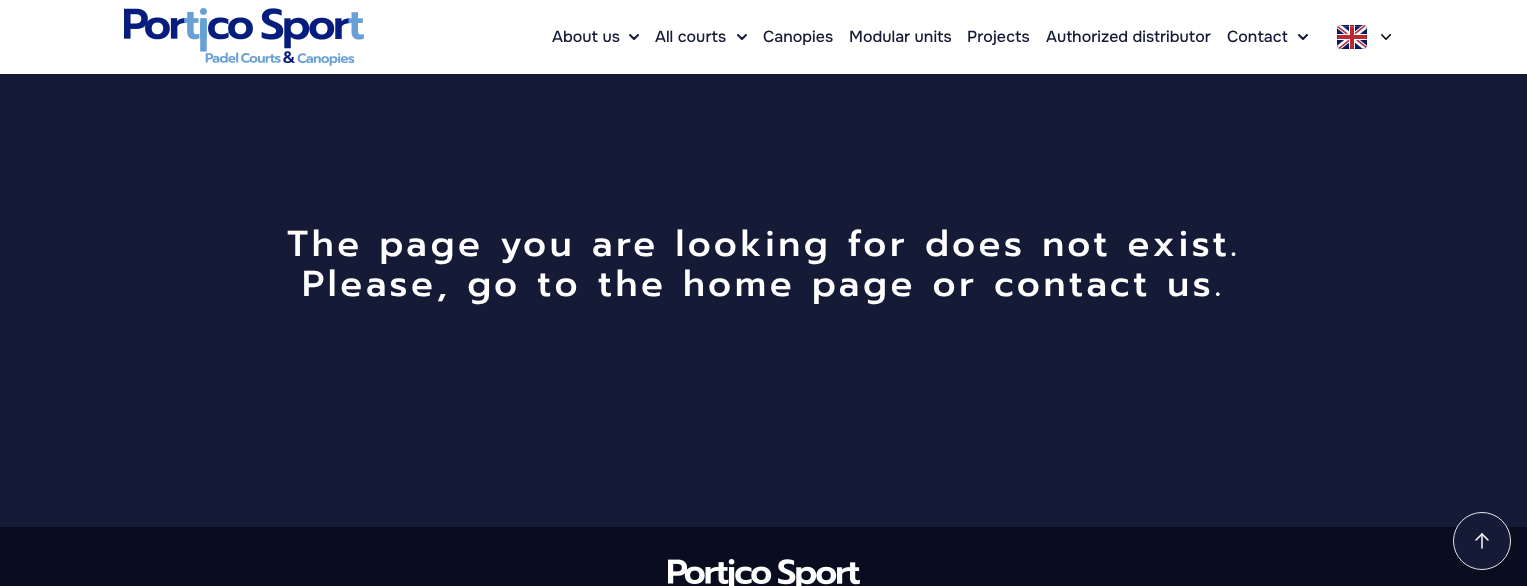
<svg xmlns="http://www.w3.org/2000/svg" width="1527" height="586">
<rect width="100%" height="100%" fill="#151a36"/>
<rect width="1527" height="74" fill="#fff"/>
<image x="124" y="8" width="240" height="58" href="media/1.png"/>
<text x="552" y="42" style="font-family:Onest;font-size:16px;font-weight:500;fill:#151a36">About us</text>
<path d="M630 35l4 4l4-4" fill="none" stroke="#151a36" stroke-width="2" stroke-linecap="round" stroke-linejoin="round"/>
<text x="655" y="42" style="font-family:Onest;font-size:16px;font-weight:500;fill:#151a36">All courts</text>
<path d="M738 35l4 4l4-4" fill="none" stroke="#151a36" stroke-width="2" stroke-linecap="round" stroke-linejoin="round"/>
<text x="763" y="42" style="font-family:Onest;font-size:16px;font-weight:500;fill:#151a36">Canopies</text>
<text x="849" y="42" style="font-family:Onest;font-size:16px;font-weight:500;fill:#151a36">Modular units</text>
<text x="967" y="42" style="font-family:Onest;font-size:16px;font-weight:500;fill:#151a36">Projects</text>
<text x="1046" y="42" style="font-family:Onest;font-size:16px;font-weight:500;fill:#151a36">Authorized distributor</text>
<text x="1227" y="42" style="font-family:Onest;font-size:16px;font-weight:500;fill:#151a36">Contact</text>
<path d="M1299 35l4 4l4-4" fill="none" stroke="#151a36" stroke-width="2" stroke-linecap="round" stroke-linejoin="round"/>
<image x="1337" y="25" width="30" height="24" href="media/2.png"/>
<image x="1381" y="34" width="10" height="6" href="media/3.png"/>
<text x="287" y="256" style="font-family:Prompt;font-size:36px;font-weight:500;letter-spacing:3.6px;fill:#fff">The page you are looking for does not exist.</text>
<text x="302" y="296" style="font-family:Prompt;font-size:36px;font-weight:500;letter-spacing:3.6px;fill:#fff">Please, go to the home page or contact us.</text>
<rect y="527" width="1527" height="59" fill="#0a0c1f"/>
<image x="668" y="559" width="192" height="27" href="media/4.png"/>
<circle cx="1482" cy="541" r="28.5" fill="#151a36" stroke="#e5e7eb"/>
<image x="1475" y="533" width="14" height="16" href="media/5.png"/>
</svg>
